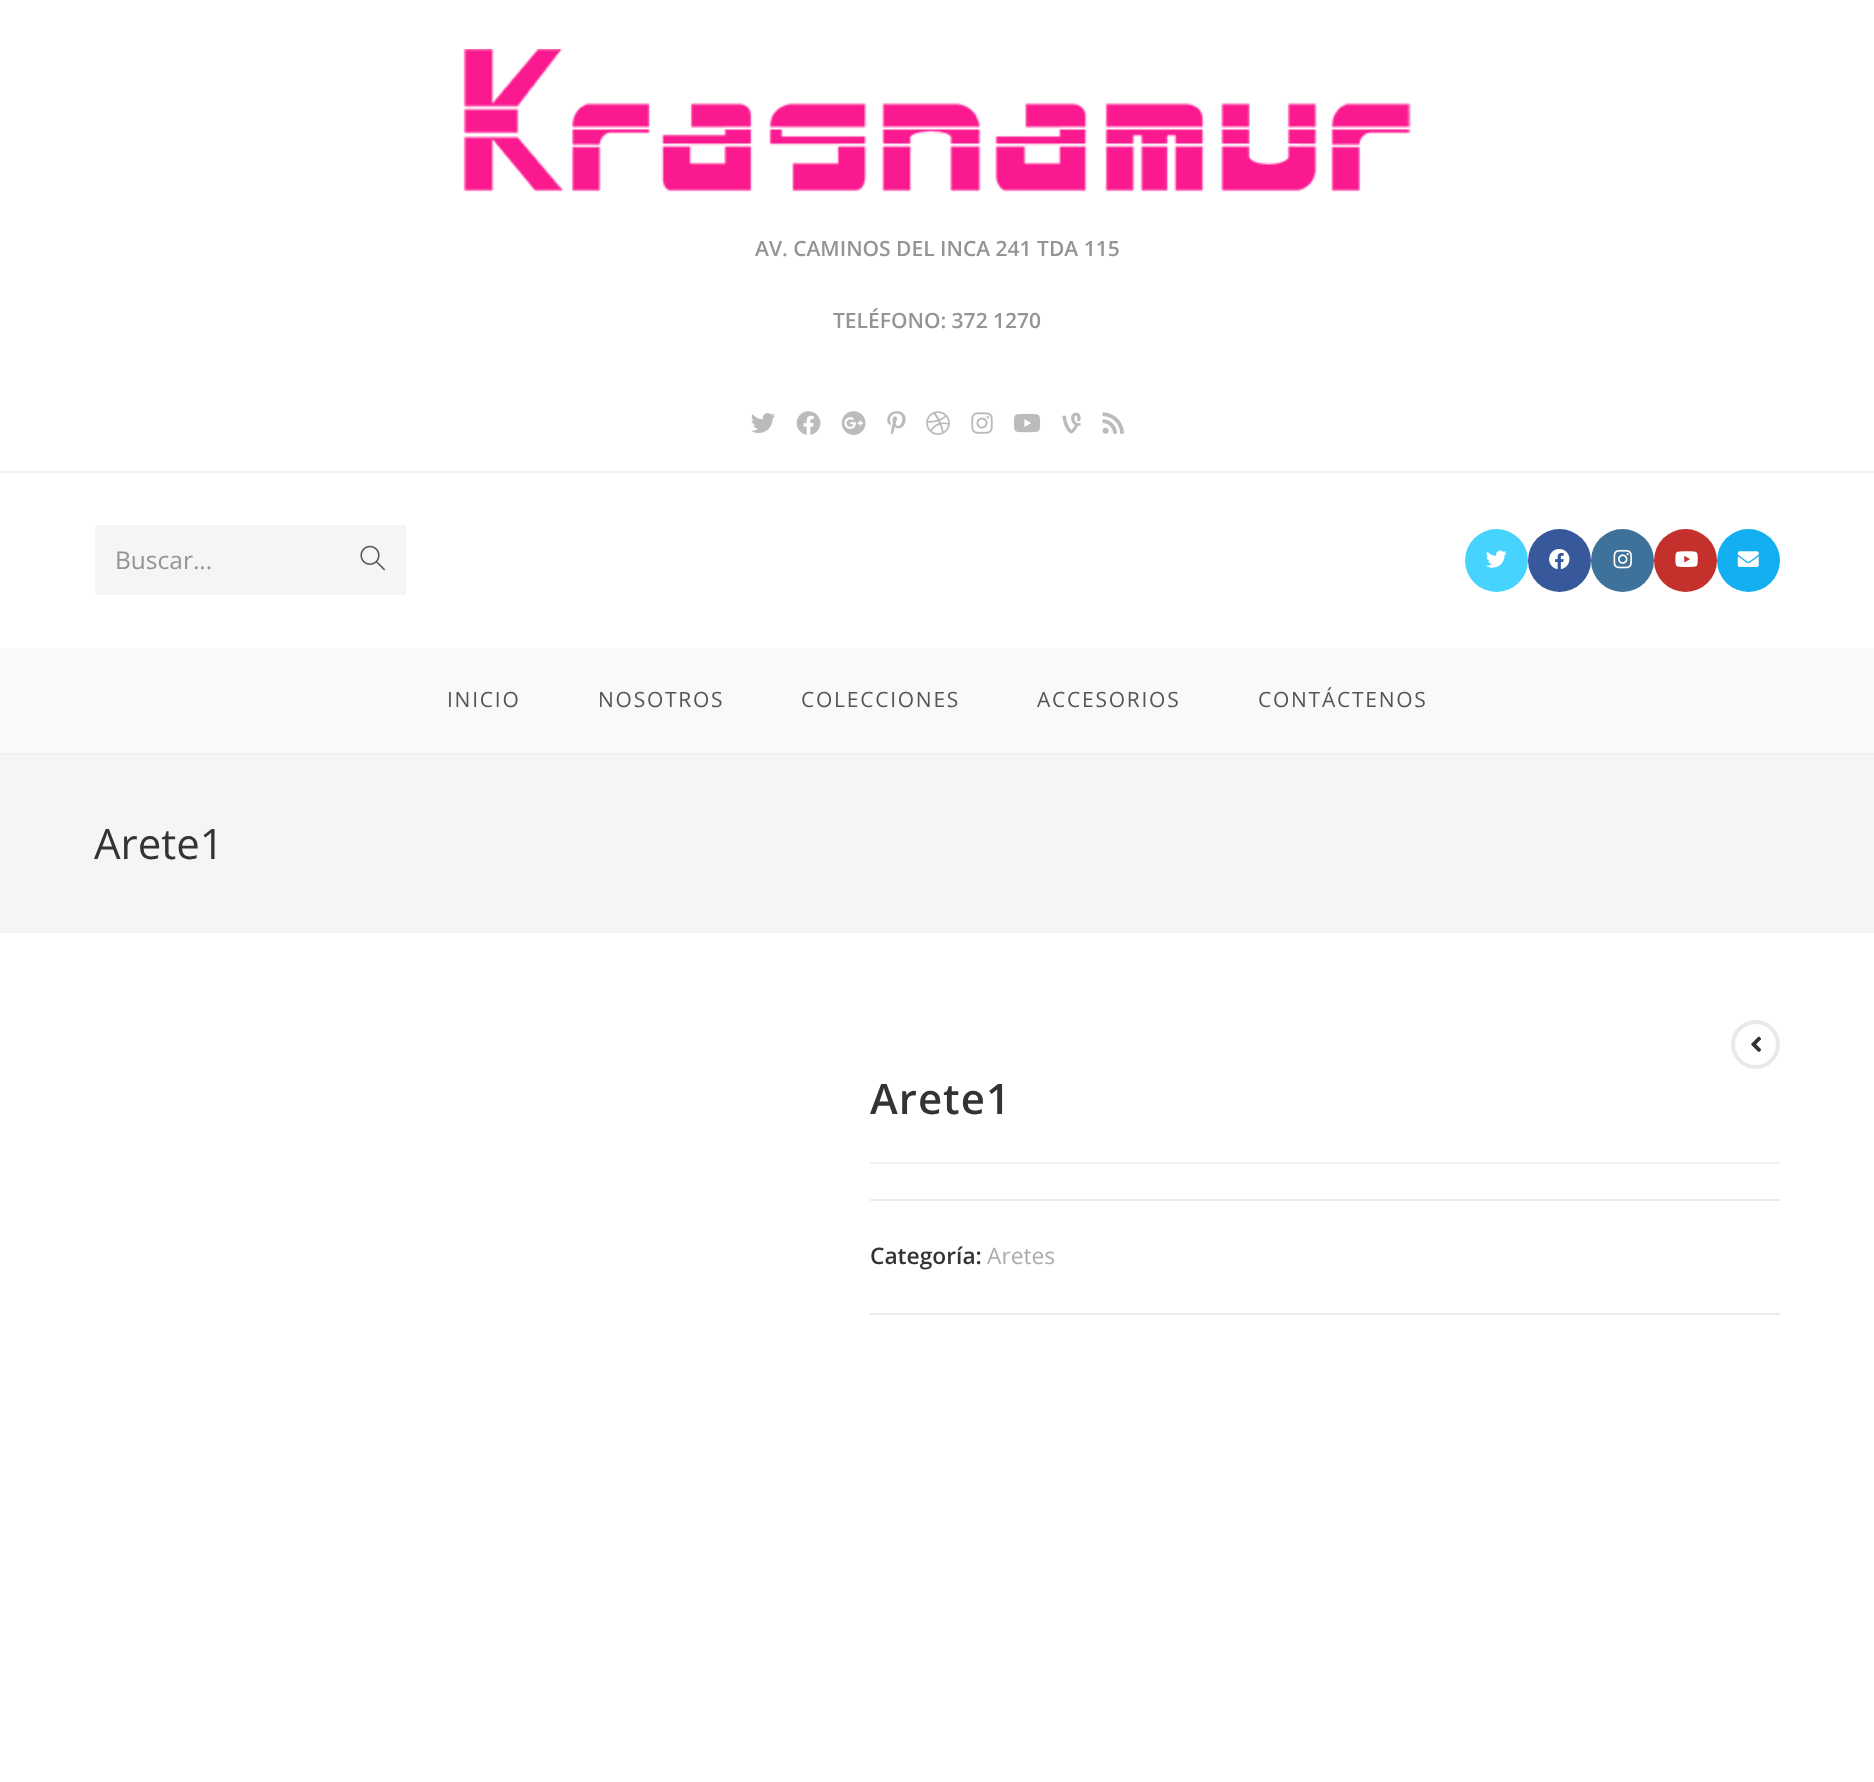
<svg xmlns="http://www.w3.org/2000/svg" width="1874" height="1782">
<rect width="100%" height="100%" fill="#fff"/>
<rect y="471" width="1874" height="2" fill="#f1f1f1"/>
<image x="463" y="49" width="948" height="143" href="media/1.png"/>
<text x="755" y="256" style="font-family:Open Sans;font-size:21px;font-weight:600;fill:#949494">AV. CAMINOS DEL INCA 241 TDA 115</text>
<text x="833" y="328" style="font-family:Open Sans;font-size:21px;font-weight:600;fill:#949494">TELÉFONO: 372 1270</text>
<image x="751" y="413" width="24" height="20" href="media/2.png"/>
<image x="796" y="411" width="25" height="24" href="media/3.png"/>
<image x="841" y="411" width="25" height="24" href="media/4.png"/>
<image x="887" y="411" width="19" height="24" href="media/5.png"/>
<image x="926" y="411" width="24" height="24" href="media/6.png"/>
<image x="971" y="412" width="22" height="22" href="media/7.png"/>
<image x="1014" y="413" width="27" height="20" href="media/8.png"/>
<image x="1062" y="412" width="19" height="22" href="media/9.png"/>
<image x="1102" y="412" width="22" height="22" href="media/10.png"/>
<rect y="753" width="1874" height="2" fill="#f1f1f1"/>
<rect x="95" y="525" width="311" height="70" fill="#f5f5f5"/>
<text x="115" y="569" style="font-family:Open Sans;font-size:24.5px;fill:#949494">Buscar...</text>
<image x="360" y="545" width="25" height="26" href="media/11.png"/>
<circle cx="1496.5" cy="560.5" r="31.5" fill="#46d4fe"/>
<image x="1486" y="550" width="21" height="18" href="media/12.png"/>
<circle cx="1559.5" cy="560.5" r="31.5" fill="#37589b"/>
<image x="1549" y="549" width="21" height="21" href="media/13.png"/>
<circle cx="1622.5" cy="560.5" r="31.5" fill="#3f729b"/>
<image x="1613" y="549" width="19" height="20" href="media/14.png"/>
<circle cx="1685.5" cy="560.5" r="31.5" fill="#c4302b"/>
<image x="1675" y="551" width="23" height="16" href="media/15.png"/>
<circle cx="1748.5" cy="560.5" r="31.5" fill="#13aff0"/>
<image x="1737" y="551" width="22" height="16" href="media/16.png"/>
<rect y="648" width="1874" height="105" fill="#f9f9f9"/>
<text x="447" y="707" style="font-family:Open Sans;font-size:21px;letter-spacing:1.75px;fill:#555">INICIO</text>
<text x="598" y="707" style="font-family:Open Sans;font-size:21px;letter-spacing:1.75px;fill:#555">NOSOTROS</text>
<text x="801" y="707" style="font-family:Open Sans;font-size:21px;letter-spacing:1.75px;fill:#555">COLECCIONES</text>
<text x="1037" y="707" style="font-family:Open Sans;font-size:21px;letter-spacing:1.75px;fill:#555">ACCESORIOS</text>
<text x="1258" y="707" style="font-family:Open Sans;font-size:21px;letter-spacing:1.75px;fill:#555">CONTÁCTENOS</text>
<rect y="755" width="1874" height="178" fill="#f5f5f5"/>
<text x="94" y="859" style="font-family:Open Sans;font-size:42px;fill:#333">Arete1</text>
<circle cx="1755.5" cy="1044.5" r="22.5" fill="none" stroke="#e9e9e9" stroke-width="4"/>
<image x="1751" y="1036" width="10" height="16" href="media/17.png"/>
<rect x="870" y="1162" width="910" height="2" fill="#f1f1f1"/>
<text x="870" y="1114" style="font-family:Open Sans;font-size:42px;font-weight:600;letter-spacing:1px;fill:#333">Arete1</text>
<rect x="870" y="1199" width="910" height="2" fill="#eaeaea"/>
<rect x="870" y="1313" width="910" height="2" fill="#eaeaea"/>
<text x="870" y="1264" style="font-family:Open Sans;font-size:22.75px;font-weight:600;fill:#333">Categoría:</text>
<text x="987" y="1264" style="font-family:Open Sans;font-size:22.75px;fill:#ababab">Aretes</text>
</svg>
